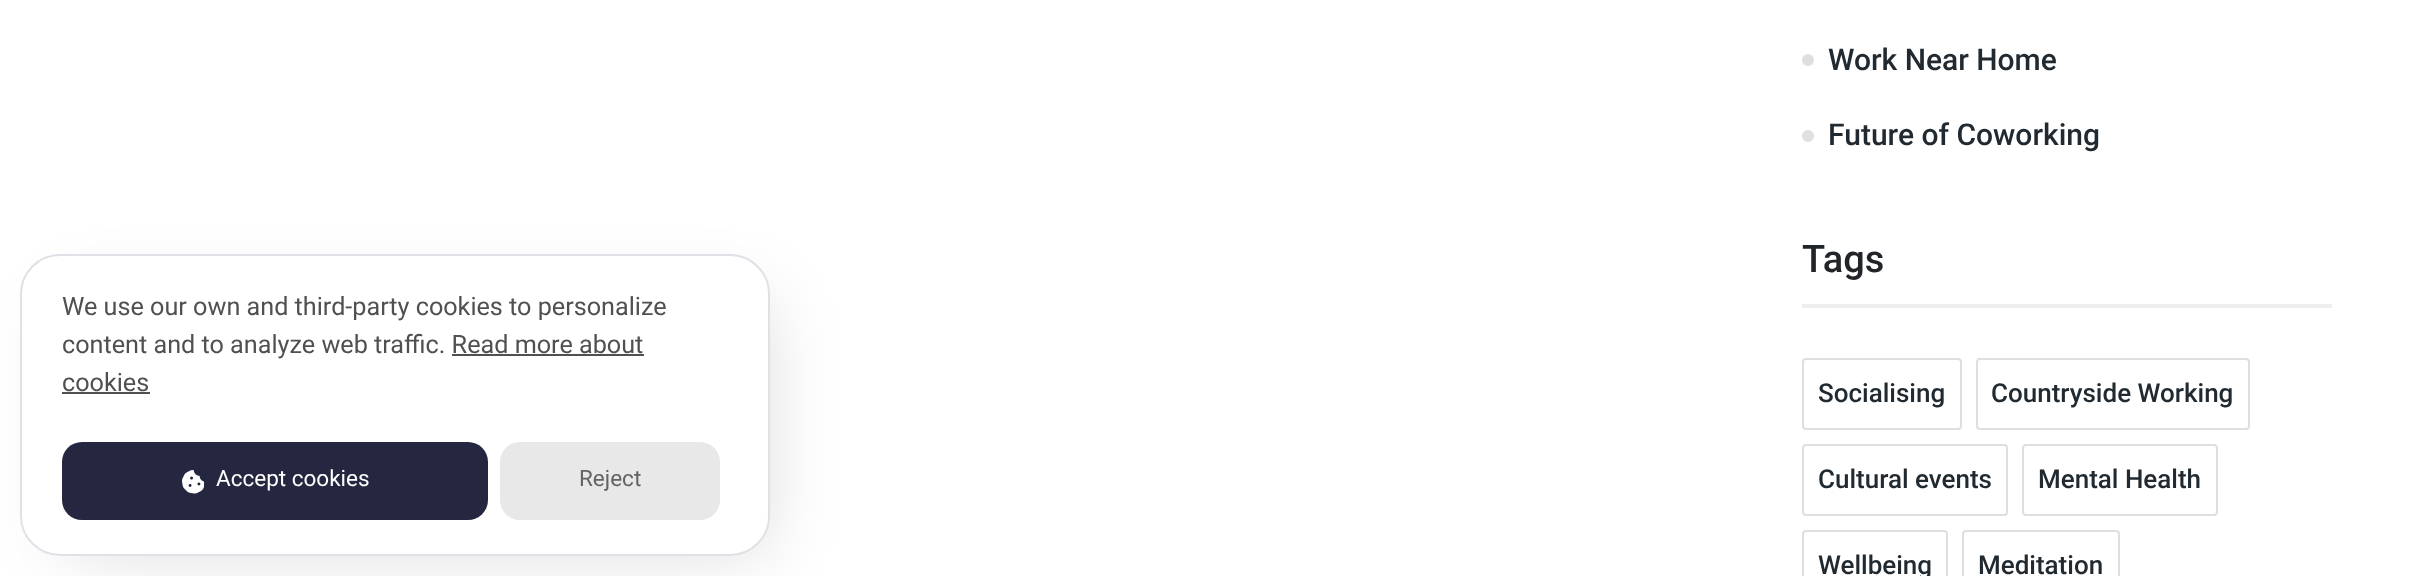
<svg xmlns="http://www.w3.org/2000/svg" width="2424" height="576">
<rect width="100%" height="100%" fill="#fff"/>
<rect x="66" y="300" width="698" height="250" rx="14" fill="#00000026" filter="blur(36px)"/>
<rect x="21" y="255" width="748" height="300" rx="39" fill="#fff" stroke="#dee2e6" stroke-width="2"/>
<text x="62" y="315" style="font-family:Roboto;font-size:25.2px;fill:#505050">We use our own and third-party cookies to personalize</text>
<text x="62" y="353" style="font-family:Roboto;font-size:25.2px;fill:#505050">content and to analyze web traffic. Read more about</text>
<text x="62" y="391" style="font-family:Roboto;font-size:25.2px;fill:#505050">cookies</text>
<rect x="452" y="354" width="192" height="2" fill="#505050"/>
<rect x="62" y="392" width="88" height="2" fill="#505050"/>
<rect x="62" y="442" width="426" height="78" rx="20" fill="#24273f"/>
<image x="182" y="470" width="22" height="24" href="media/1.png"/>
<text x="216" y="486" style="font-family:Roboto;font-size:22.5px;fill:#fff">Accept cookies</text>
<rect x="500" y="442" width="220" height="78" rx="20" fill="#e8e8e8"/>
<text x="579" y="486" style="font-family:Roboto;font-size:22.5px;fill:#636363">Reject</text>
<circle cx="1808" cy="60" r="6" fill="#dfdfdf"/>
<text x="1828" y="70" style="font-family:Roboto;font-size:30px;font-weight:500;fill:#212a30">Work Near Home</text>
<circle cx="1808" cy="136" r="6" fill="#dfdfdf"/>
<text x="1828" y="145" style="font-family:Roboto;font-size:30px;font-weight:500;fill:#212a30">Future of Coworking</text>
<rect x="1802" y="304" width="530" height="4" fill="#eee"/>
<text x="1802" y="272" style="font-family:Roboto;font-size:38px;font-weight:500;fill:#212529">Tags</text>
<rect x="1803" y="359" width="158" height="70" rx="3" fill="none" stroke="#dfdfdf" stroke-width="2"/>
<text x="1818" y="402" style="font-family:Roboto;font-size:26px;font-weight:500;fill:#212a30">Socialising</text>
<rect x="1977" y="359" width="272" height="70" rx="3" fill="none" stroke="#dfdfdf" stroke-width="2"/>
<text x="1991" y="402" style="font-family:Roboto;font-size:26px;font-weight:500;fill:#212a30">Countryside Working</text>
<rect x="1803" y="445" width="204" height="70" rx="3" fill="none" stroke="#dfdfdf" stroke-width="2"/>
<text x="1818" y="488" style="font-family:Roboto;font-size:26px;font-weight:500;fill:#212a30">Cultural events</text>
<rect x="2023" y="445" width="194" height="70" rx="3" fill="none" stroke="#dfdfdf" stroke-width="2"/>
<text x="2038" y="488" style="font-family:Roboto;font-size:26px;font-weight:500;fill:#212a30">Mental Health</text>
<rect x="1803" y="531" width="144" height="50" rx="3" fill="none" stroke="#dfdfdf" stroke-width="2"/>
<text x="1818" y="574" style="font-family:Roboto;font-size:26px;font-weight:500;fill:#212a30">Wellbeing</text>
<rect x="1963" y="531" width="156" height="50" rx="3" fill="none" stroke="#dfdfdf" stroke-width="2"/>
<text x="1978" y="574" style="font-family:Roboto;font-size:26px;font-weight:500;fill:#212a30">Meditation</text>
</svg>
